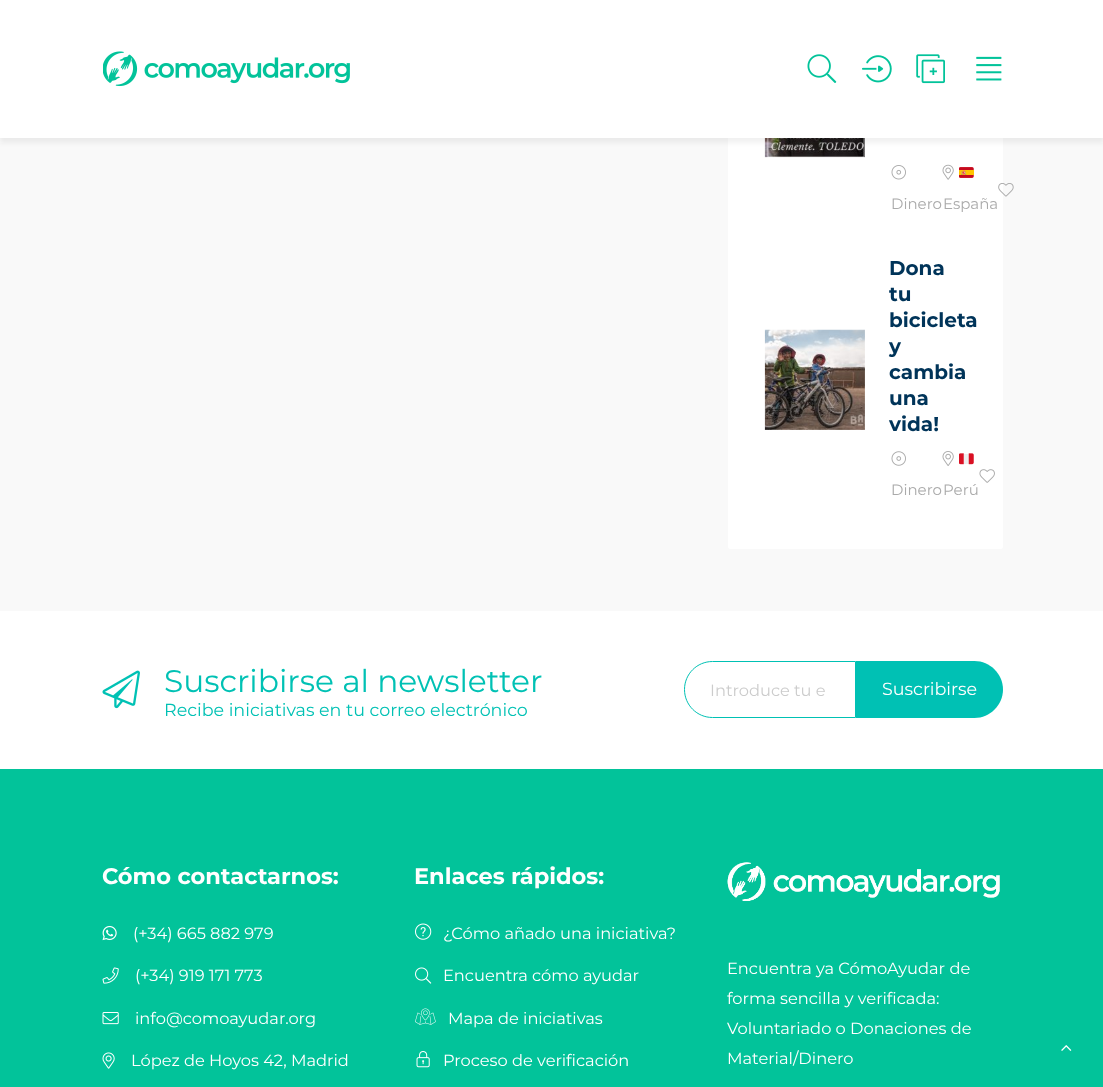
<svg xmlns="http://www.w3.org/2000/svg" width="1103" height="1087">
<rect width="100%" height="100%" fill="#f9f9f9"/>
<rect x="728" y="-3" width="275" height="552" rx="2.5" fill="#fff"/>
<image x="764" y="138" width="101" height="20" href="media/6.png"/>
<rect y="5" width="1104" height="138" fill="#1717170f" filter="blur(2.5px)"/>
<rect width="1103" height="138" fill="#fff"/>
<image x="103" y="51" width="247" height="36" href="media/1.png"/>
<image x="807" y="54" width="30" height="29" href="media/2.png"/>
<image x="862" y="55" width="30" height="28" href="media/3.png"/>
<image x="916" y="54" width="29" height="30" href="media/4.png"/>
<image x="976" y="56" width="26" height="25" href="media/5.png"/>
<image x="998" y="183" width="16" height="14" href="media/7.png"/>
<image x="891" y="165" width="15" height="15" href="media/8.png"/>
<text x="891" y="209" style="font-family:Montserrat;font-size:15px;fill:#aaa">Dinero</text>
<image x="942" y="164" width="12" height="16" href="media/9.png"/>
<image x="959" y="167" width="15" height="11" href="media/10.png"/>
<text x="943" y="209" style="font-family:Montserrat;font-size:15px;fill:#aaa">España</text>
<image x="764" y="329" width="101" height="101" href="media/11.png"/>
<text x="889" y="275" style="font-family:Montserrat;font-size:20px;font-weight:bold;fill:#003459">Dona</text>
<text x="889" y="301" style="font-family:Montserrat;font-size:20px;font-weight:bold;fill:#003459">tu</text>
<text x="889" y="327" style="font-family:Montserrat;font-size:20px;font-weight:bold;fill:#003459">bicicleta</text>
<text x="889" y="353" style="font-family:Montserrat;font-size:20px;font-weight:bold;fill:#003459">y</text>
<text x="889" y="379" style="font-family:Montserrat;font-size:20px;font-weight:bold;fill:#003459">cambia</text>
<text x="889" y="405" style="font-family:Montserrat;font-size:20px;font-weight:bold;fill:#003459">una</text>
<text x="889" y="431" style="font-family:Montserrat;font-size:20px;font-weight:bold;fill:#003459">vida!</text>
<image x="979" y="469" width="16" height="14" href="media/12.png"/>
<image x="891" y="451" width="15" height="15" href="media/13.png"/>
<text x="891" y="495" style="font-family:Montserrat;font-size:15px;fill:#aaa">Dinero</text>
<image x="942" y="451" width="12" height="15" href="media/14.png"/>
<image x="959" y="453" width="15" height="12" href="media/15.png"/>
<text x="943" y="495" style="font-family:Montserrat;font-size:15px;fill:#aaa">Perú</text>
<rect y="611" width="1103" height="158" fill="#fff"/>
<image x="102" y="670" width="38" height="39" href="media/16.png"/>
<text x="164" y="692" style="font-family:Montserrat;font-size:31.25px;fill:#00c1b4">Suscribirse al newsletter</text>
<text x="164" y="716" style="font-family:Montserrat;font-size:17.5px;fill:#00c1b4">Recibe iniciativas en tu correo electrónico</text>
<path d="M712.5 661.5h143v56h-143c-15.5 0-28-12.5-28-28c0-15.5 12.5-28 28-28z" fill="none" stroke="#00c1b4"/>
<text x="710" y="696" style="font-family:Montserrat;font-size:16.25px;fill:#ccc">Introduce tu e</text>
<path d="M856 661h118.5c15.5 0 28.5 13 28.5 28.5c0 15.5-13 28.5-28.5 28.5h-118.5z" fill="#00c1b4"/>
<text x="882" y="695" style="font-family:Montserrat;font-size:17.5px;fill:#fff">Suscribirse</text>
<rect y="769" width="1103" height="318" fill="#02c39a"/>
<text x="102" y="884" style="font-family:Montserrat;font-size:22.5px;font-weight:bold;fill:#fff">Cómo contactarnos:</text>
<image x="102" y="925" width="15" height="16" href="media/17.png"/>
<text x="133" y="939" style="font-family:Montserrat;font-size:16.25px;fill:#fff">(+34) 665 882 979</text>
<image x="102" y="967" width="17" height="17" href="media/18.png"/>
<text x="135" y="981" style="font-family:Montserrat;font-size:16.25px;fill:#fff">(+34) 919 171 773</text>
<image x="102" y="1012" width="17" height="13" href="media/19.png"/>
<text x="135" y="1024" style="font-family:Montserrat;font-size:16.25px;fill:#fff">info@comoayudar.org</text>
<image x="102" y="1052" width="13" height="17" href="media/20.png"/>
<text x="131" y="1066" style="font-family:Montserrat;font-size:16.25px;fill:#fff">López de Hoyos 42, Madrid</text>
<text x="414" y="884" style="font-family:Montserrat;font-size:22.5px;font-weight:bold;fill:#fff">Enlaces rápidos:</text>
<image x="415" y="923" width="17" height="17" href="media/21.png"/>
<text x="443" y="939" style="font-family:Montserrat;font-size:16.25px;fill:#fff">¿Cómo añado una iniciativa?</text>
<image x="415" y="967" width="17" height="17" href="media/22.png"/>
<text x="443" y="981" style="font-family:Montserrat;font-size:16.25px;fill:#fff">Encuentra cómo ayudar</text>
<image x="415" y="1008" width="21" height="17" href="media/23.png"/>
<text x="448" y="1024" style="font-family:Montserrat;font-size:16.25px;fill:#fff">Mapa de iniciativas</text>
<image x="416" y="1051" width="14" height="17" href="media/24.png"/>
<text x="443" y="1066" style="font-family:Montserrat;font-size:16.25px;fill:#fff">Proceso de verificación</text>
<image x="727" y="862" width="273" height="39" href="media/25.png"/>
<text x="727" y="974" style="font-family:Montserrat;font-size:16.25px;fill:#fff">Encuentra ya CómoAyudar de</text>
<text x="727" y="1004" style="font-family:Montserrat;font-size:16.25px;fill:#fff">forma sencilla y verificada:</text>
<text x="727" y="1034" style="font-family:Montserrat;font-size:16.25px;fill:#fff">Voluntariado o Donaciones de</text>
<text x="727" y="1064" style="font-family:Montserrat;font-size:16.25px;fill:#fff">Material/Dinero</text>
<image x="1061" y="1045" width="11" height="6" href="media/26.png"/>
</svg>
